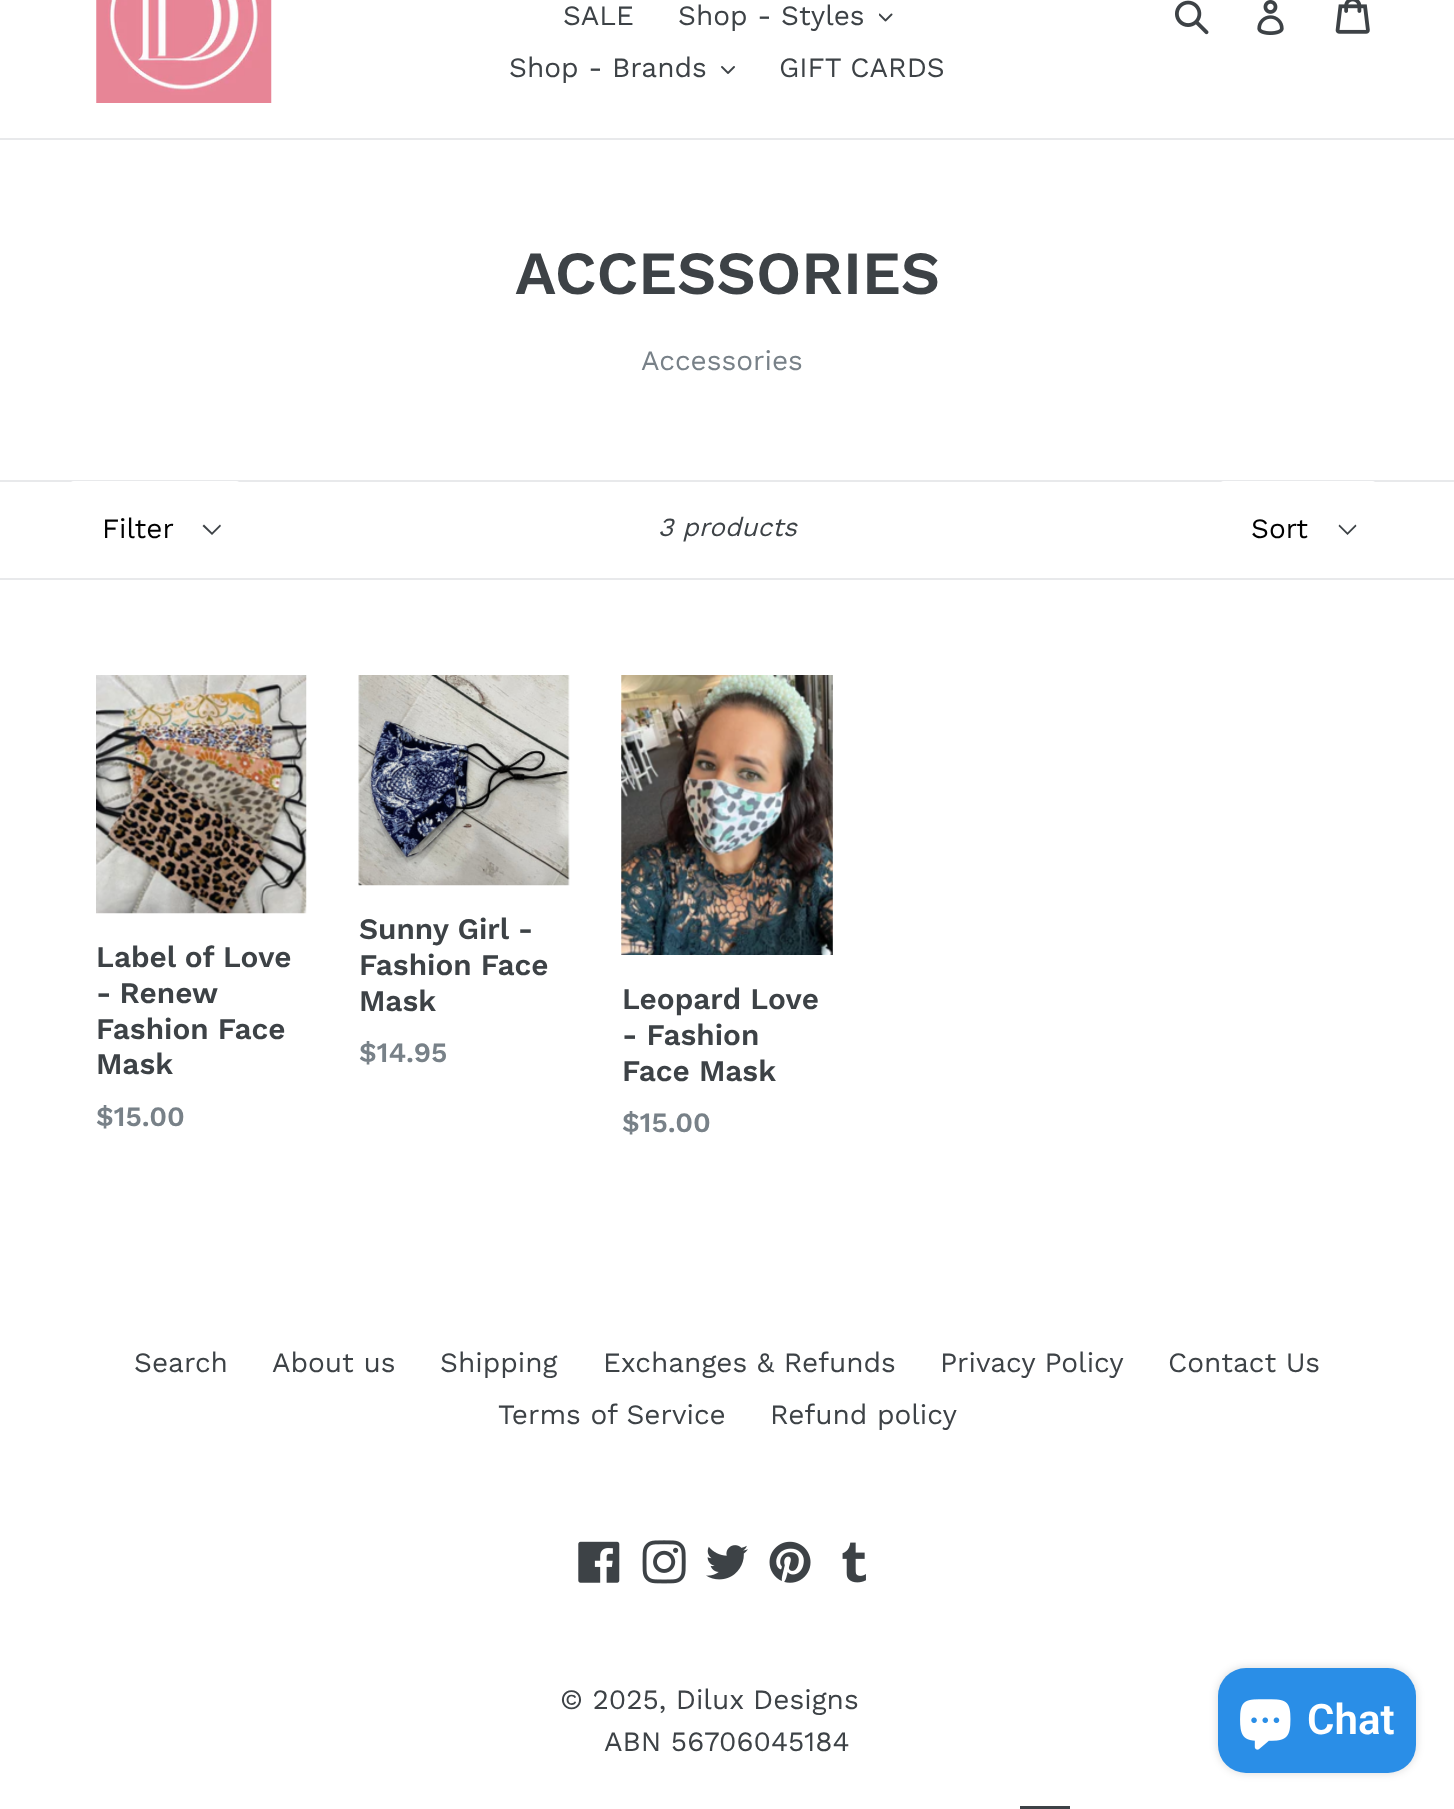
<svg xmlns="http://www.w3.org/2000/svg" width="1454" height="1809">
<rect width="100%" height="100%" fill="#fff"/>
<rect y="138" width="1454" height="2" fill="#e8e9eb"/>
<image x="96" y="0" width="176" height="103" href="media/1.png"/>
<text x="563" y="25" style="font-family:Work Sans;font-size:28px;fill:#3d4246">SALE</text>
<text x="678" y="25" style="font-family:Work Sans;font-size:28px;fill:#3d4246">Shop - Styles</text>
<image x="879" y="13" width="14" height="9" href="media/2.png"/>
<text x="509" y="77" style="font-family:Work Sans;font-size:28px;fill:#3d4246">Shop - Brands</text>
<image x="721" y="66" width="14" height="8" href="media/3.png"/>
<text x="779" y="77" style="font-family:Work Sans;font-size:28px;fill:#3d4246">GIFT CARDS</text>
<image x="1175" y="0" width="34" height="35" href="media/4.png"/>
<image x="1257" y="0" width="27" height="35" href="media/5.png"/>
<image x="1335" y="0" width="35" height="34" href="media/6.png"/>
<text x="515" y="294" style="font-family:Work Sans;font-size:61.25px;font-weight:600;fill:#3d4246">ACCESSORIES</text>
<text x="641" y="370" style="font-family:Work Sans;font-size:28px;fill:#788188">Accessories</text>
<rect y="480" width="1454" height="2" fill="#e8e9eb"/>
<rect y="578" width="1454" height="2" fill="#e8e9eb"/>
<rect x="70" y="481" width="170" height="97" rx="4" fill="#fff"/>
<path d="M212 535l-9.5-9l1.5-1.5l8 8l8-8l1 1.5z" fill="#3d4246"/>
<text x="102" y="538" style="font-family:Work Sans;font-size:28px;fill:#000">Filter</text>
<text x="658" y="536" style="font-family:Work Sans;font-size:26.25px;font-style:italic;fill:#3d4246">3 products</text>
<rect x="1220" y="481" width="156" height="97" rx="4" fill="#fff"/>
<path d="M1347.5 535l-9-9l1-1.5l8 8l8-8l1 1.5z" fill="#3d4246"/>
<text x="1251" y="538" style="font-family:Work Sans;font-size:28px;fill:#000">Sort</text>
<image x="96" y="675" width="211" height="239" href="media/7.png"/>
<text x="96" y="967" style="font-family:Work Sans;font-size:29.75px;font-weight:600;fill:#3d4246">Label of Love</text>
<text x="96" y="1003" word-spacing="-1" style="font-family:Work Sans;font-size:29.75px;font-weight:600;fill:#3d4246">- Renew</text>
<text x="96" y="1039" style="font-family:Work Sans;font-size:29.75px;font-weight:600;fill:#3d4246">Fashion Face</text>
<text x="96" y="1074" style="font-family:Work Sans;font-size:29.75px;font-weight:600;fill:#3d4246">Mask</text>
<text x="96" y="1126" style="font-family:Work Sans;font-size:28px;font-weight:600;fill:#788188">$15.00</text>
<image x="358" y="675" width="212" height="211" href="media/8.png"/>
<text x="359" y="939" style="font-family:Work Sans;font-size:29.75px;font-weight:600;fill:#3d4246">Sunny Girl -</text>
<text x="359" y="975" style="font-family:Work Sans;font-size:29.75px;font-weight:600;fill:#3d4246">Fashion Face</text>
<text x="359" y="1011" style="font-family:Work Sans;font-size:29.75px;font-weight:600;fill:#3d4246">Mask</text>
<text x="359" y="1062" style="font-family:Work Sans;font-size:28px;font-weight:600;fill:#788188">$14.95</text>
<image x="621" y="675" width="212" height="280" href="media/9.png"/>
<text x="622" y="1009" style="font-family:Work Sans;font-size:29.75px;font-weight:600;fill:#3d4246">Leopard Love</text>
<text x="622" y="1045" style="font-family:Work Sans;font-size:29.75px;font-weight:600;fill:#3d4246">- Fashion</text>
<text x="622" y="1081" style="font-family:Work Sans;font-size:29.75px;font-weight:600;fill:#3d4246">Face Mask</text>
<text x="622" y="1132" style="font-family:Work Sans;font-size:28px;font-weight:600;fill:#788188">$15.00</text>
<text x="134" y="1372" style="font-family:Work Sans;font-size:28px;fill:#3d4246">Search</text>
<text x="272" y="1372" style="font-family:Work Sans;font-size:28px;fill:#3d4246">About us</text>
<text x="440" y="1372" style="font-family:Work Sans;font-size:28px;fill:#3d4246">Shipping</text>
<text x="603" y="1372" style="font-family:Work Sans;font-size:28px;fill:#3d4246">Exchanges &amp; Refunds</text>
<text x="940" y="1372" style="font-family:Work Sans;font-size:28px;fill:#3d4246">Privacy Policy</text>
<text x="1168" y="1372" style="font-family:Work Sans;font-size:28px;fill:#3d4246">Contact Us</text>
<text x="498" y="1424" style="font-family:Work Sans;font-size:28px;fill:#3d4246">Terms of Service</text>
<text x="770" y="1424" style="font-family:Work Sans;font-size:28px;fill:#3d4246">Refund policy</text>
<image x="578" y="1541" width="42" height="42" href="media/10.png"/>
<image x="642" y="1540" width="44" height="44" href="media/11.png"/>
<image x="706" y="1545" width="42" height="35" href="media/12.png"/>
<image x="769" y="1541" width="42" height="42" href="media/13.png"/>
<image x="842" y="1542" width="24" height="41" href="media/14.png"/>
<text x="560" y="1709" style="font-family:Work Sans;font-size:28px;fill:#3d4246">© 2025, Dilux Designs</text>
<text x="604" y="1751" style="font-family:Work Sans;font-size:28px;fill:#3d4246">ABN 56706045184</text>
<rect x="1020" y="1806" width="50" height="3" fill="#3d4246"/>
<rect x="1218" y="1668" width="198" height="105" rx="28" fill="#00000026" filter="blur(4.5px)"/>
<rect x="1218" y="1668" width="198" height="105" rx="28" fill="#2a8ee7"/>
<image x="1240" y="1699" width="51" height="51" href="media/15.png"/>
<text x="1307" y="1734" style="font-family:Roboto;font-size:42px;font-weight:600;fill:#fff">Chat</text>
</svg>
